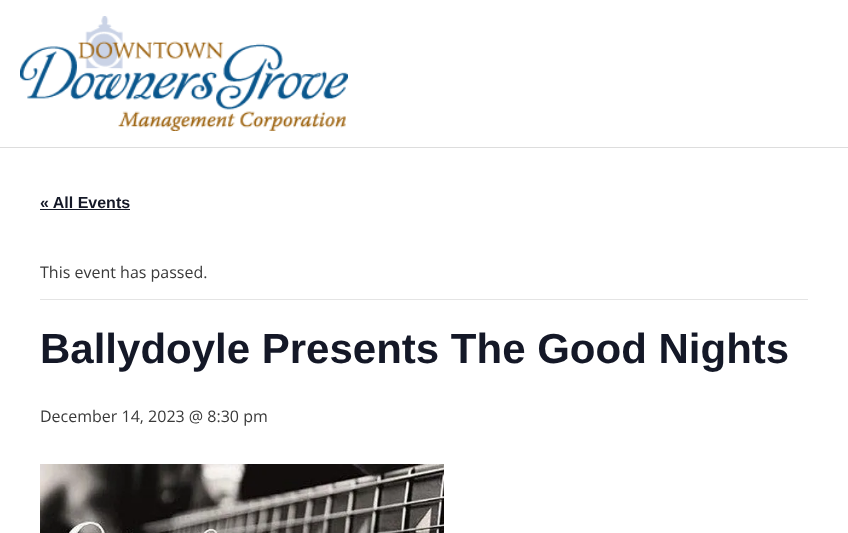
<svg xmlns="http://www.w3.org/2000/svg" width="848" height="533">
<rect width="100%" height="100%" fill="#fff"/>
<rect y="147" width="848" height="1" fill="#ddd"/>
<image x="20" y="16" width="328" height="115" href="media/1.png"/>
<text x="40" y="208" style="font-family:Liberation Sans;font-size:16px;font-weight:bold;fill:#141827">« All Events</text>
<rect x="40" y="209" width="90" height="1" fill="#141827"/>
<rect x="40" y="299" width="768" height="1" fill="#e4e4e4"/>
<text x="40" y="278" style="font-family:Open Sans;font-size:16px;fill:#3a3a3a">This event has passed.</text>
<text x="40" y="363" style="font-family:Liberation Sans;font-size:42px;font-weight:bold;fill:#141827">Ballydoyle Presents The Good Nights</text>
<text x="40" y="422" style="font-family:Open Sans;font-size:16px;fill:#3a3a3a">December 14, 2023 @ 8:30 pm</text>
<image x="40" y="464" width="404" height="69" href="media/2.png"/>
</svg>
